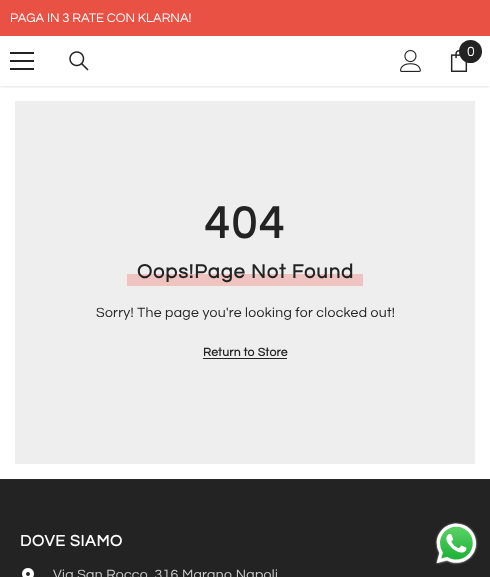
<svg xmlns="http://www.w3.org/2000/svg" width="490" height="577">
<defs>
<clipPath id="clip1"><rect x="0" y="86" width="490" height="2"/></clipPath>
</defs>
<rect width="100%" height="100%" fill="#fff"/>
<rect width="490" height="36" fill="#e95144"/>
<text x="10" y="22" style="font-family:Questrial;font-size:13px;fill:#fff">PAGA IN 3 RATE CON KLARNA!</text>
<g clip-path="url(#clip1)">
<rect y="37" width="490" height="50" fill="#0000001a" filter="blur(1.5px)"/>
</g>
<rect x="10" y="60" width="24" height="2" fill="#232323"/>
<rect x="10" y="52" width="24" height="2" fill="#232323"/>
<rect x="10" y="68" width="24" height="2" fill="#232323"/>
<image x="69" y="51" width="20" height="20" href="media/1.png"/>
<image x="400" y="50" width="21" height="22" href="media/2.png"/>
<image x="450" y="50" width="18" height="22" href="media/3.png"/>
<circle cx="470.5" cy="51.5" r="11.5" fill="#232323"/>
<text x="467" y="56" style="font-family:Questrial;font-size:14px;fill:#fff">0</text>
<rect x="15" y="101" width="460" height="363" fill="#eee"/>
<text x="204" y="238" style="font-family:Questrial;font-size:46px;font-weight:bold;letter-spacing:2px;fill:#232323">404</text>
<rect x="127" y="274" width="236" height="12" fill="#efc3c0"/>
<text x="137" y="278" style="font-family:Questrial;font-size:20px;font-weight:bold;letter-spacing:1px;fill:#232323">Oops!Page Not Found</text>
<text x="96" y="317" style="font-family:Questrial;font-size:14px;letter-spacing:0.3px;fill:#232323">Sorry! The page you're looking for clocked out!</text>
<text x="203" y="356" style="font-family:Questrial;font-size:12px;font-weight:bold;letter-spacing:0.25px;fill:#232323">Return to Store</text>
<rect x="203" y="358" width="84" height="1" fill="#232323"/>
<rect y="480" width="490" height="97" fill="#232323"/>
<rect y="479" width="490" height="1" fill="#282828"/>
<text x="20" y="546" style="font-family:Questrial;font-size:16px;font-weight:bold;letter-spacing:0.75px;fill:#fff">DOVE SIAMO</text>
<image x="22" y="568" width="12" height="9" href="media/4.png"/>
<text x="53" y="579" style="font-family:Questrial;font-size:14px;letter-spacing:0.3px;fill:#cfcfcf">Via San Rocco, 316 Marano Napoli</text>
<image x="435" y="522" width="43" height="43" href="media/5.png"/>
</svg>
